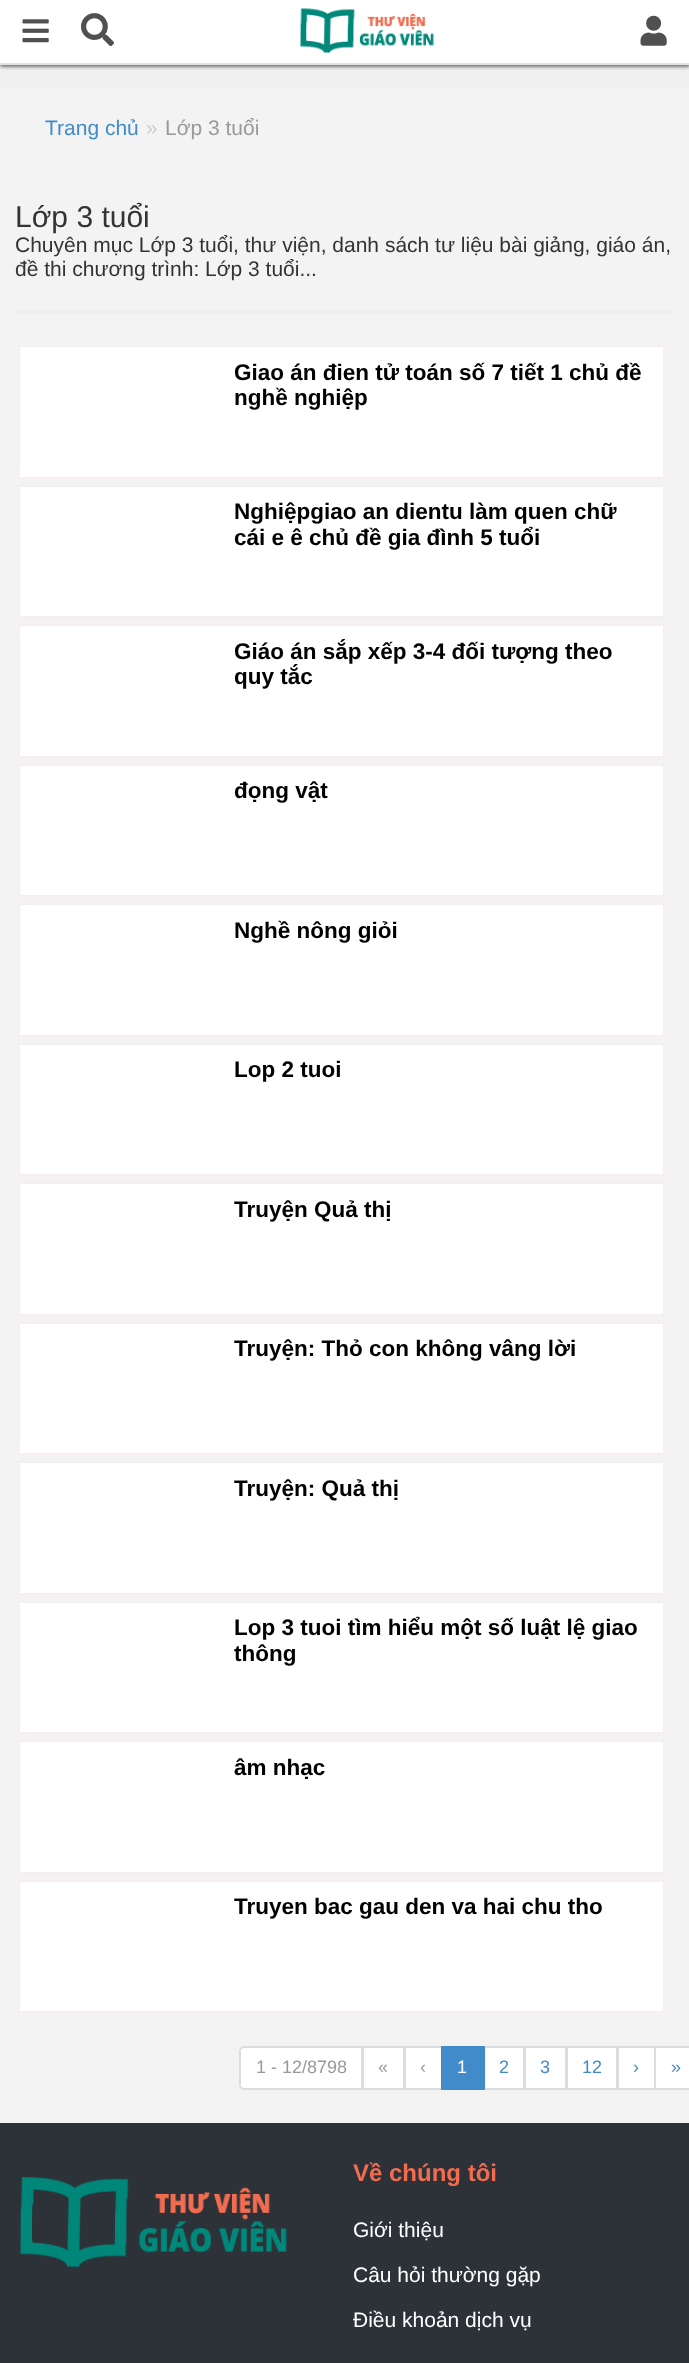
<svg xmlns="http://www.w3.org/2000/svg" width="689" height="2363">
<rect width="100%" height="100%" fill="#f0f0f0"/>
<rect y="2" width="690" height="64" fill="#000000bf" filter="blur(2px)"/>
<rect width="689" height="63" fill="#fff"/>
<rect y="63" width="689" height="2" fill="#e1e1e1"/>
<image x="22" y="19" width="27" height="24" href="media/1.png"/>
<image x="81" y="13" width="33" height="34" href="media/2.png"/>
<image x="299" y="8" width="135" height="46" href="media/3.png"/>
<image x="640" y="15" width="27" height="31" href="media/4.png"/>
<rect y="89" width="689" height="2034" fill="#f3f3f3"/>
<text x="45" y="135" style="font-family:Liberation Sans;font-size:21px;fill:#428bca">Trang chủ</text>
<text x="146" y="135" style="font-family:Liberation Sans;font-size:21px;fill:#ccc">»</text>
<text x="165" y="135" style="font-family:Liberation Sans;font-size:21px;fill:#999">Lớp 3 tuổi</text>
<text x="15" y="227" style="font-family:Liberation Sans;font-size:30px;fill:#333">Lớp 3 tuổi</text>
<text x="15" y="252" style="font-family:Liberation Sans;font-size:21px;fill:#333">Chuyên mục Lớp 3 tuổi, thư viện, danh sách tư liệu bài giảng, giáo án,</text>
<text x="15" y="276" style="font-family:Liberation Sans;font-size:21px;fill:#333">đề thi chương trình: Lớp 3 tuổi...</text>
<rect x="15" y="311" width="660" height="2" fill="#eee"/>
<rect x="19" y="346" width="645" height="132" fill="#fff" stroke="#f7eeee" stroke-width="2"/>
<text x="234" y="380" style="font-family:Liberation Sans;font-size:22.5px;font-weight:bold;fill:#000">Giao án đien tử toán số 7 tiết 1 chủ đề</text>
<text x="234" y="405" style="font-family:Liberation Sans;font-size:22.5px;font-weight:bold;fill:#000">nghề nghiệp</text>
<rect x="19" y="486" width="645" height="131" fill="#fff" stroke="#f7eeee" stroke-width="2"/>
<text x="234" y="519" style="font-family:Liberation Sans;font-size:22.5px;font-weight:bold;fill:#000">Nghiệpgiao an dientu làm quen chữ</text>
<text x="234" y="545" style="font-family:Liberation Sans;font-size:22.5px;font-weight:bold;fill:#000">cái e ê chủ đề gia đình 5 tuổi</text>
<rect x="19" y="625" width="645" height="132" fill="#fff" stroke="#f7eeee" stroke-width="2"/>
<text x="234" y="659" style="font-family:Liberation Sans;font-size:22.5px;font-weight:bold;fill:#000">Giáo án sắp xếp 3-4 đối tượng theo</text>
<text x="234" y="684" style="font-family:Liberation Sans;font-size:22.5px;font-weight:bold;fill:#000">quy tắc</text>
<rect x="19" y="765" width="645" height="131" fill="#fff" stroke="#f7eeee" stroke-width="2"/>
<text x="234" y="798" style="font-family:Liberation Sans;font-size:22.5px;font-weight:bold;fill:#000">đọng vật</text>
<rect x="19" y="904" width="645" height="132" fill="#fff" stroke="#f7eeee" stroke-width="2"/>
<text x="234" y="938" style="font-family:Liberation Sans;font-size:22.5px;font-weight:bold;fill:#000">Nghề nông giỏi</text>
<rect x="19" y="1044" width="645" height="131" fill="#fff" stroke="#f7eeee" stroke-width="2"/>
<text x="234" y="1077" style="font-family:Liberation Sans;font-size:22.5px;font-weight:bold;fill:#000">Lop 2 tuoi</text>
<rect x="19" y="1183" width="645" height="132" fill="#fff" stroke="#f7eeee" stroke-width="2"/>
<text x="234" y="1217" style="font-family:Liberation Sans;font-size:22.5px;font-weight:bold;fill:#000">Truyện Quả thị</text>
<rect x="19" y="1323" width="645" height="131" fill="#fff" stroke="#f7eeee" stroke-width="2"/>
<text x="234" y="1356" style="font-family:Liberation Sans;font-size:22.5px;font-weight:bold;fill:#000">Truyện: Thỏ con không vâng lời</text>
<rect x="19" y="1462" width="645" height="132" fill="#fff" stroke="#f7eeee" stroke-width="2"/>
<text x="234" y="1496" style="font-family:Liberation Sans;font-size:22.5px;font-weight:bold;fill:#000">Truyện: Quả thị</text>
<rect x="19" y="1602" width="645" height="131" fill="#fff" stroke="#f7eeee" stroke-width="2"/>
<text x="234" y="1635" style="font-family:Liberation Sans;font-size:22.5px;font-weight:bold;fill:#000">Lop 3 tuoi tìm hiểu một số luật lệ giao</text>
<text x="234" y="1661" style="font-family:Liberation Sans;font-size:22.5px;font-weight:bold;fill:#000">thông</text>
<rect x="19" y="1741" width="645" height="132" fill="#fff" stroke="#f7eeee" stroke-width="2"/>
<text x="234" y="1775" style="font-family:Liberation Sans;font-size:22.5px;font-weight:bold;fill:#000">âm nhạc</text>
<rect x="19" y="1881" width="645" height="131" fill="#fff" stroke="#f7eeee" stroke-width="2"/>
<text x="234" y="1914" style="font-family:Liberation Sans;font-size:22.5px;font-weight:bold;fill:#000">Truyen bac gau den va hai chu tho</text>
<path d="M244 2047h118v42h-118c-2 0-4-2-4-4v-34c0-2 2-4 4-4z" fill="#fff" stroke="#ddd" stroke-width="2"/>
<text x="256" y="2073" style="font-family:Liberation Sans;font-size:18px;fill:#999">1 - 12/8798</text>
<rect x="363" y="2047" width="41" height="42" fill="#fff" stroke="#ddd" stroke-width="2"/>
<text x="378" y="2073" style="font-family:Liberation Sans;font-size:18px;fill:#999">«</text>
<rect x="405" y="2047" width="37" height="42" fill="#fff" stroke="#ddd" stroke-width="2"/>
<text x="420" y="2073" style="font-family:Liberation Sans;font-size:18px;fill:#999">‹</text>
<rect x="484" y="2047" width="40" height="42" fill="#fff" stroke="#ddd" stroke-width="2"/>
<rect x="441" y="2046" width="44" height="44" fill="#428bca"/>
<text x="457" y="2073" style="font-family:Liberation Sans;font-size:18px;fill:#fff">1</text>
<text x="499" y="2073" style="font-family:Liberation Sans;font-size:18px;fill:#428bca">2</text>
<rect x="525" y="2047" width="41" height="42" fill="#fff" stroke="#ddd" stroke-width="2"/>
<text x="540" y="2073" style="font-family:Liberation Sans;font-size:18px;fill:#428bca">3</text>
<rect x="567" y="2047" width="50" height="42" fill="#fff" stroke="#ddd" stroke-width="2"/>
<text x="582" y="2073" style="font-family:Liberation Sans;font-size:18px;fill:#428bca">12</text>
<rect x="618" y="2047" width="37" height="42" fill="#fff" stroke="#ddd" stroke-width="2"/>
<text x="633" y="2073" style="font-family:Liberation Sans;font-size:18px;fill:#428bca">›</text>
<rect x="655" y="2047" width="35" height="42" fill="#fff" stroke="#ddd" stroke-width="2"/>
<text x="671" y="2073" style="font-family:Liberation Sans;font-size:18px;fill:#428bca">»</text>
<rect y="2123" width="689" height="240" fill="#2c3238"/>
<image x="19" y="2177" width="268" height="90" href="media/5.png"/>
<text x="353" y="2181" style="font-family:Liberation Sans;font-size:24px;font-weight:bold;fill:#f26c4f">Về chúng tôi</text>
<text x="353" y="2237" style="font-family:Liberation Sans;font-size:21px;fill:#fff">Giới thiệu</text>
<text x="353" y="2282" style="font-family:Liberation Sans;font-size:21px;fill:#fff">Câu hỏi thường gặp</text>
<text x="353" y="2327" style="font-family:Liberation Sans;font-size:21px;fill:#fff">Điều khoản dịch vụ</text>
</svg>
